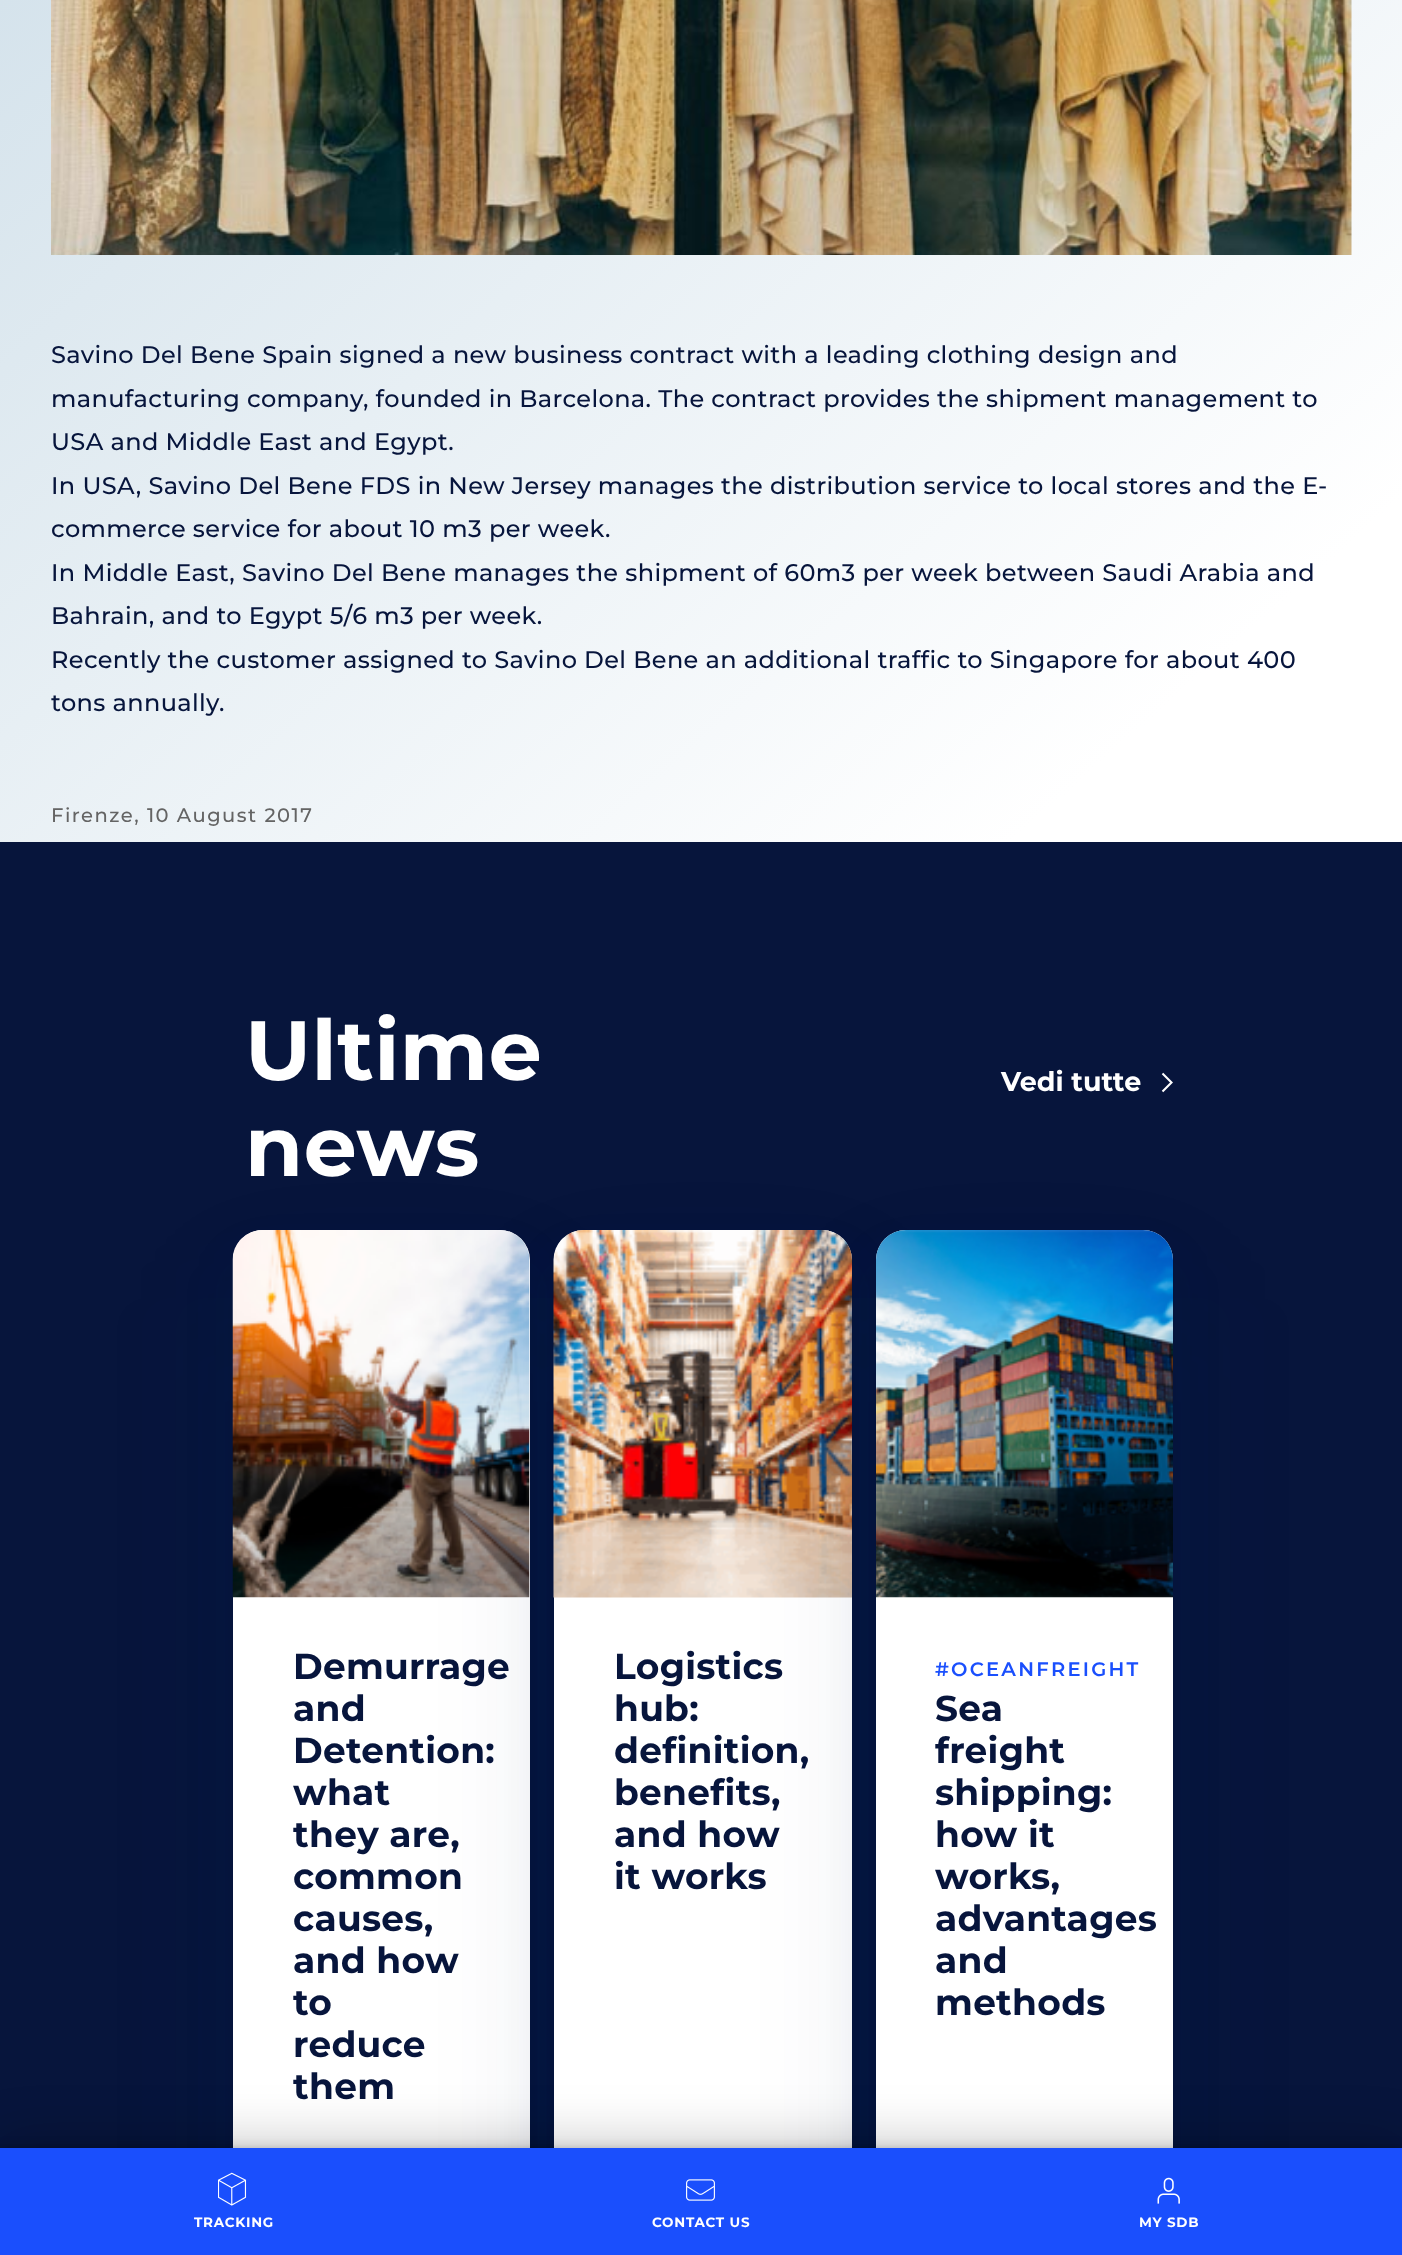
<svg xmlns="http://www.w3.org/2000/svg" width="1402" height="2255">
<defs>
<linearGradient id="g1" gradientUnits="userSpaceOnUse" x1="-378" y1="-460" x2="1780" y2="1994"><stop offset="0.04" stop-color="#c6d9e5"/><stop offset="0.58" stop-color="#fff"/></linearGradient>
</defs>
<rect width="100%" height="100%" fill="#fff"/>
<rect width="1402" height="842" fill="url(#g1)"/>
<image x="51" y="0" width="1301" height="255" href="media/1.png"/>
<text x="51" y="363" style="font-family:Montserrat;font-size:24px;font-weight:500;letter-spacing:0.38px;fill:#07153c">Savino Del Bene Spain signed a new business contract with a leading clothing design and</text>
<text x="51" y="407" style="font-family:Montserrat;font-size:24px;font-weight:500;letter-spacing:0.38px;fill:#07153c">manufacturing company, founded in Barcelona. The contract provides the shipment management to</text>
<text x="51" y="450" style="font-family:Montserrat;font-size:24px;font-weight:500;letter-spacing:0.38px;fill:#07153c">USA and Middle East and Egypt.</text>
<text x="51" y="494" style="font-family:Montserrat;font-size:24px;font-weight:500;letter-spacing:0.38px;fill:#07153c">In USA, Savino Del Bene FDS in New Jersey manages the distribution service to local stores and the E-</text>
<text x="51" y="537" style="font-family:Montserrat;font-size:24px;font-weight:500;letter-spacing:0.38px;fill:#07153c">commerce service for about 10 m3 per week.</text>
<text x="51" y="581" style="font-family:Montserrat;font-size:24px;font-weight:500;letter-spacing:0.38px;fill:#07153c">In Middle East, Savino Del Bene manages the shipment of 60m3 per week between Saudi Arabia and</text>
<text x="51" y="624" style="font-family:Montserrat;font-size:24px;font-weight:500;letter-spacing:0.38px;fill:#07153c">Bahrain, and to Egypt 5/6 m3 per week.</text>
<text x="51" y="668" style="font-family:Montserrat;font-size:24px;font-weight:500;letter-spacing:0.38px;fill:#07153c">Recently the customer assigned to Savino Del Bene an additional traffic to Singapore for about 400</text>
<text x="51" y="711" style="font-family:Montserrat;font-size:24px;font-weight:500;letter-spacing:0.38px;fill:#07153c">tons annually.</text>
<text x="51" y="822" style="font-family:Montserrat;font-size:19.5px;font-weight:500;letter-spacing:1.5px;fill:#646464">Firenze, 10 August 2017</text>
<rect y="842" width="1402" height="1306" fill="#07153c"/>
<text x="245" y="1080" style="font-family:Montserrat;font-size:84px;font-weight:bold;letter-spacing:0.38px;fill:#fff">Ultime</text>
<text x="245" y="1176" style="font-family:Montserrat;font-size:84px;font-weight:bold;letter-spacing:0.38px;fill:#fff">news</text>
<text x="1001" y="1091" style="font-family:Montserrat;font-size:27px;font-weight:bold;fill:#fff">Vedi tutte</text>
<path d="M1162.5 1091.5l9-9l-9-9" fill="none" stroke="#fff" stroke-width="2.1"/>
<rect x="233" y="1259" width="297" height="972" rx="30" fill="#001c5414" filter="blur(25px)"/>
<rect x="233" y="1298" width="297" height="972" rx="30" fill="#001c541c" filter="blur(60px)"/>
<rect x="233" y="1230" width="297" height="972" rx="30" fill="#fff"/>
<image x="232" y="1230" width="298" height="368" href="media/2.png"/>
<text x="293" y="1679" style="font-family:Montserrat;font-size:36px;font-weight:bold;letter-spacing:0.25px;fill:#07153c">Demurrage</text>
<text x="293" y="1721" style="font-family:Montserrat;font-size:36px;font-weight:bold;letter-spacing:0.25px;fill:#07153c">and</text>
<text x="293" y="1763" style="font-family:Montserrat;font-size:36px;font-weight:bold;letter-spacing:0.25px;fill:#07153c">Detention:</text>
<text x="293" y="1805" style="font-family:Montserrat;font-size:36px;font-weight:bold;letter-spacing:0.25px;fill:#07153c">what</text>
<text x="293" y="1847" style="font-family:Montserrat;font-size:36px;font-weight:bold;letter-spacing:0.25px;fill:#07153c">they are,</text>
<text x="293" y="1889" style="font-family:Montserrat;font-size:36px;font-weight:bold;letter-spacing:0.25px;fill:#07153c">common</text>
<text x="293" y="1931" style="font-family:Montserrat;font-size:36px;font-weight:bold;letter-spacing:0.25px;fill:#07153c">causes,</text>
<text x="293" y="1973" style="font-family:Montserrat;font-size:36px;font-weight:bold;letter-spacing:0.25px;fill:#07153c">and how</text>
<text x="293" y="2015" style="font-family:Montserrat;font-size:36px;font-weight:bold;letter-spacing:0.25px;fill:#07153c">to</text>
<text x="293" y="2057" style="font-family:Montserrat;font-size:36px;font-weight:bold;letter-spacing:0.25px;fill:#07153c">reduce</text>
<text x="293" y="2099" style="font-family:Montserrat;font-size:36px;font-weight:bold;letter-spacing:0.25px;fill:#07153c">them</text>
<rect x="554" y="1259" width="298" height="972" rx="30" fill="#001c5414" filter="blur(25px)"/>
<rect x="554" y="1298" width="298" height="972" rx="30" fill="#001c541c" filter="blur(60px)"/>
<rect x="554" y="1230" width="298" height="972" rx="30" fill="#fff"/>
<image x="553" y="1230" width="299" height="368" href="media/3.png"/>
<text x="614" y="1679" style="font-family:Montserrat;font-size:36px;font-weight:bold;letter-spacing:0.25px;fill:#07153c">Logistics</text>
<text x="614" y="1721" style="font-family:Montserrat;font-size:36px;font-weight:bold;letter-spacing:0.25px;fill:#07153c">hub:</text>
<text x="614" y="1763" style="font-family:Montserrat;font-size:36px;font-weight:bold;letter-spacing:0.25px;fill:#07153c">definition,</text>
<text x="614" y="1805" style="font-family:Montserrat;font-size:36px;font-weight:bold;letter-spacing:0.25px;fill:#07153c">benefits,</text>
<text x="614" y="1847" style="font-family:Montserrat;font-size:36px;font-weight:bold;letter-spacing:0.25px;fill:#07153c">and how</text>
<text x="614" y="1889" style="font-family:Montserrat;font-size:36px;font-weight:bold;letter-spacing:0.25px;fill:#07153c">it works</text>
<rect x="876" y="1259" width="297" height="972" rx="30" fill="#001c5414" filter="blur(25px)"/>
<rect x="876" y="1298" width="297" height="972" rx="30" fill="#001c541c" filter="blur(60px)"/>
<rect x="876" y="1230" width="297" height="972" rx="30" fill="#fff"/>
<image x="876" y="1230" width="297" height="368" href="media/4.png"/>
<text x="935" y="1676" style="font-family:Montserrat;font-size:19.5px;font-weight:600;letter-spacing:2.25px;fill:#1a4ffd">#OCEANFREIGHT</text>
<text x="935" y="1721" style="font-family:Montserrat;font-size:36px;font-weight:bold;letter-spacing:0.25px;fill:#07153c">Sea</text>
<text x="935" y="1763" style="font-family:Montserrat;font-size:36px;font-weight:bold;letter-spacing:0.25px;fill:#07153c">freight</text>
<text x="935" y="1805" style="font-family:Montserrat;font-size:36px;font-weight:bold;letter-spacing:0.25px;fill:#07153c">shipping:</text>
<text x="935" y="1847" style="font-family:Montserrat;font-size:36px;font-weight:bold;letter-spacing:0.25px;fill:#07153c">how it</text>
<text x="935" y="1889" style="font-family:Montserrat;font-size:36px;font-weight:bold;letter-spacing:0.25px;fill:#07153c">works,</text>
<text x="935" y="1931" style="font-family:Montserrat;font-size:36px;font-weight:bold;letter-spacing:0.25px;fill:#07153c">advantages</text>
<text x="935" y="1973" style="font-family:Montserrat;font-size:36px;font-weight:bold;letter-spacing:0.25px;fill:#07153c">and</text>
<text x="935" y="2015" style="font-family:Montserrat;font-size:36px;font-weight:bold;letter-spacing:0.25px;fill:#07153c">methods</text>
<rect y="2148" width="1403" height="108" fill="#00000017" filter="blur(2px)"/>
<rect y="2147" width="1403" height="108" fill="#0000001f" filter="blur(6px)"/>
<rect y="2142" width="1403" height="108" fill="#00000036" filter="blur(27px)"/>
<rect y="2148" width="1402" height="107" fill="#1a4ffd"/>
<image x="218" y="2172" width="29" height="34" href="media/5.png"/>
<text x="194" y="2227" style="font-family:Montserrat;font-size:13.5px;font-weight:bold;letter-spacing:0.75px;fill:#fff">TRACKING</text>
<image x="686" y="2179" width="29" height="22" href="media/6.png"/>
<text x="652" y="2227" style="font-family:Montserrat;font-size:13.5px;font-weight:bold;letter-spacing:0.75px;fill:#fff">CONTACT US</text>
<image x="1157" y="2177" width="23" height="27" href="media/7.png"/>
<text x="1139" y="2227" style="font-family:Montserrat;font-size:13.5px;font-weight:bold;letter-spacing:0.75px;fill:#fff">MY SDB</text>
</svg>
